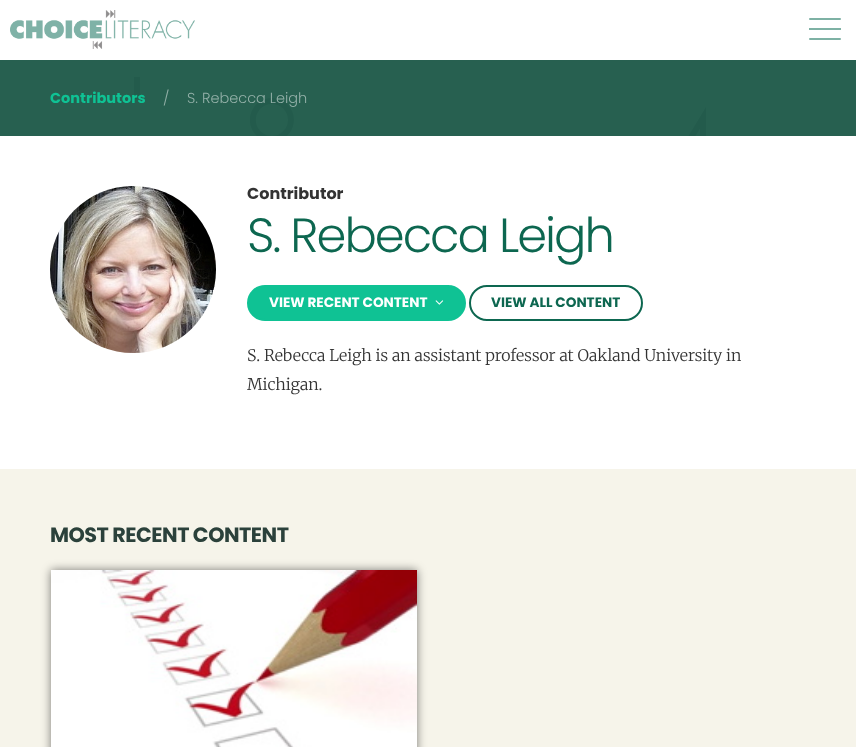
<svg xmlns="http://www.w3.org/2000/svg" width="856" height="747">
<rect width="100%" height="100%" fill="#fff"/>
<image x="10" y="10" width="185" height="39" href="media/1.png"/>
<rect x="809" y="28" width="32" height="2" fill="#7eb1a4"/>
<rect x="809" y="18" width="32" height="2" rx="1" fill="#7eb1a4"/>
<rect x="809" y="38" width="32" height="2" rx="1" fill="#7eb1a4"/>
<image x="0" y="60" width="856" height="76" href="media/2.png"/>
<text x="50" y="103" style="font-family:Poppins;font-size:14.5px;font-weight:bold;fill:#0fc294">Contributors</text>
<text x="163" y="103" style="font-family:Poppins;font-size:14.5px;font-weight:300;fill:#93b0a8">/</text>
<text x="187" y="103" style="font-family:Poppins;font-size:14.5px;font-weight:300;fill:#93b0a8">S. Rebecca Leigh</text>
<image x="50" y="186" width="166" height="167" href="media/3.png"/>
<text x="247" y="199" style="font-family:Poppins;font-size:16px;font-weight:bold;fill:#333">Contributor</text>
<text x="247" y="252" style="font-family:Poppins;font-size:48px;font-weight:300;letter-spacing:-2px;fill:#0d6750">S. Rebecca Leigh</text>
<rect x="248" y="286" width="217" height="34" rx="17" fill="#0fc294" stroke="#0fc294" stroke-width="2"/>
<text x="269" y="307" style="font-family:Poppins;font-size:13.6px;font-weight:bold;fill:#fff">VIEW RECENT CONTENT</text>
<image x="435" y="300" width="9" height="5" href="media/4.png"/>
<rect x="470" y="286" width="172" height="34" rx="17" fill="none" stroke="#0d6750" stroke-width="2"/>
<text x="491" y="307" style="font-family:Poppins;font-size:13.6px;font-weight:bold;fill:#0d6750">VIEW ALL CONTENT</text>
<text x="247" y="361" style="font-family:Merriweather;font-size:16px;font-weight:300;fill:#333">S. Rebecca Leigh is an assistant professor at Oakland University in</text>
<text x="247" y="390" style="font-family:Merriweather;font-size:16px;font-weight:300;fill:#333">Michigan.</text>
<rect y="469" width="856" height="278" fill="#f6f4ea"/>
<text x="50" y="542" style="font-family:Poppins;font-size:20.75px;font-weight:bold;letter-spacing:-0.5px;fill:#2b413b">MOST RECENT CONTENT</text>
<rect x="51" y="570" width="366" height="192" fill="#00000080" filter="blur(5px)"/>
<image x="51" y="570" width="366" height="177" href="media/5.png"/>
</svg>
